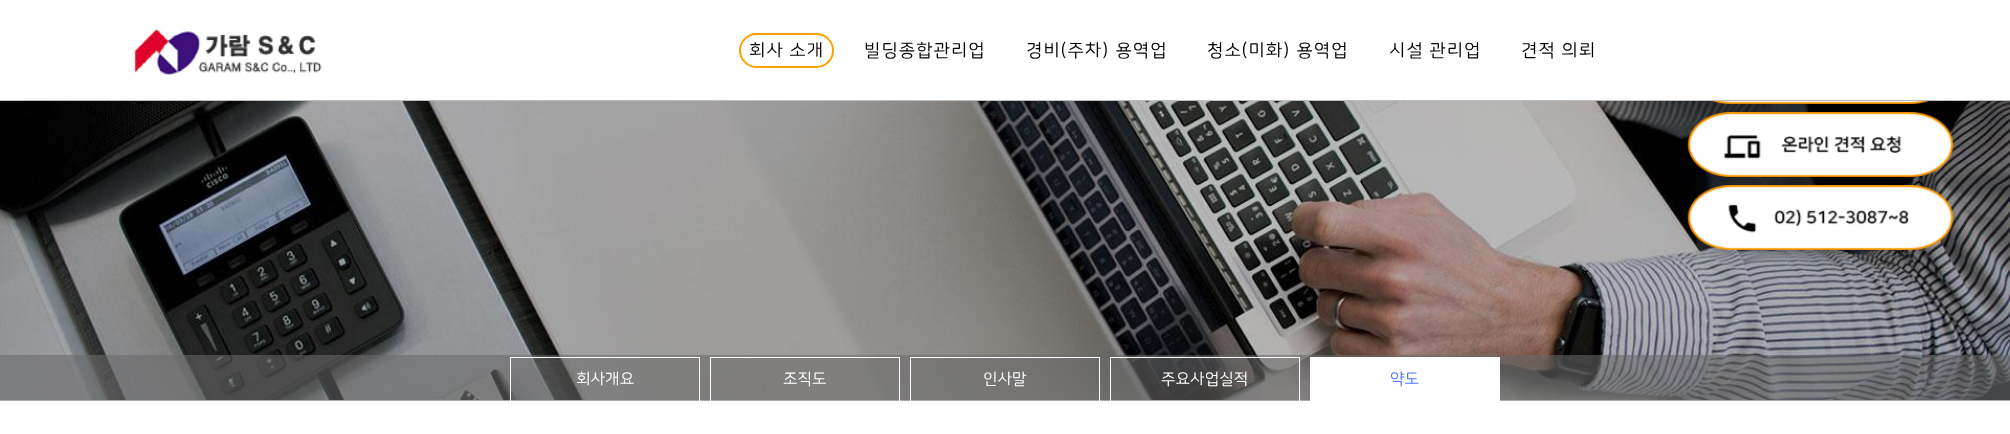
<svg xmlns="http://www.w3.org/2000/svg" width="2010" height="434">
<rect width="100%" height="100%" fill="#fff"/>
<rect y="100" width="2010" height="1" fill="#bfbfbf"/>
<image x="134" y="28" width="188" height="48" href="media/1.png"/>
<rect x="740" y="34" width="93" height="33" rx="16.5" fill="none" stroke="#ffa100" stroke-width="2"/>
<text x="749" y="56" style="font-family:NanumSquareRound;font-size:18px;letter-spacing:1px;fill:#000">회사 소개</text>
<text x="864" y="56" style="font-family:NanumSquareRound;font-size:18px;letter-spacing:1px;fill:#000">빌딩종합관리업</text>
<text x="1026" y="56" word-spacing="1" style="font-family:NanumSquareRound;font-size:18px;letter-spacing:1px;fill:#000">경비(주차) 용역업</text>
<text x="1207" y="56" word-spacing="1" style="font-family:NanumSquareRound;font-size:18px;letter-spacing:1px;fill:#000">청소(미화) 용역업</text>
<text x="1389" y="56" style="font-family:NanumSquareRound;font-size:18px;letter-spacing:1px;fill:#000">시설 관리업</text>
<text x="1521" y="56" style="font-family:NanumSquareRound;font-size:18px;letter-spacing:1px;fill:#000">견적 의뢰</text>
<image x="0" y="101" width="2010" height="299" href="media/2.png"/>
<rect y="355" width="2010" height="46" fill="#69696994"/>
<image x="1711" y="101" width="219" height="3" href="media/3.png"/>
<image x="1687" y="112" width="267" height="65" href="media/4.png"/>
<image x="1687" y="185" width="267" height="65" href="media/5.png"/>
<rect x="510.5" y="357.5" width="189" height="44" fill="none" stroke="#fff"/>
<text x="576" y="384" style="font-family:NanumSquareRound;font-size:16px;fill:#fff">회사개요</text>
<rect x="710.5" y="357.5" width="189" height="44" fill="none" stroke="#fff"/>
<text x="783" y="384" style="font-family:NanumSquareRound;font-size:16px;fill:#fff">조직도</text>
<rect x="910.5" y="357.5" width="189" height="44" fill="none" stroke="#fff"/>
<text x="983" y="384" style="font-family:NanumSquareRound;font-size:16px;fill:#fff">인사말</text>
<rect x="1110.5" y="357.5" width="189" height="44" fill="none" stroke="#fff"/>
<text x="1161" y="384" style="font-family:NanumSquareRound;font-size:16px;fill:#fff">주요사업실적</text>
<rect x="1310" y="357" width="190" height="44" fill="#fff"/>
<text x="1390" y="384" style="font-family:NanumSquareRound;font-size:16px;fill:#4d75ff">약도</text>
</svg>
